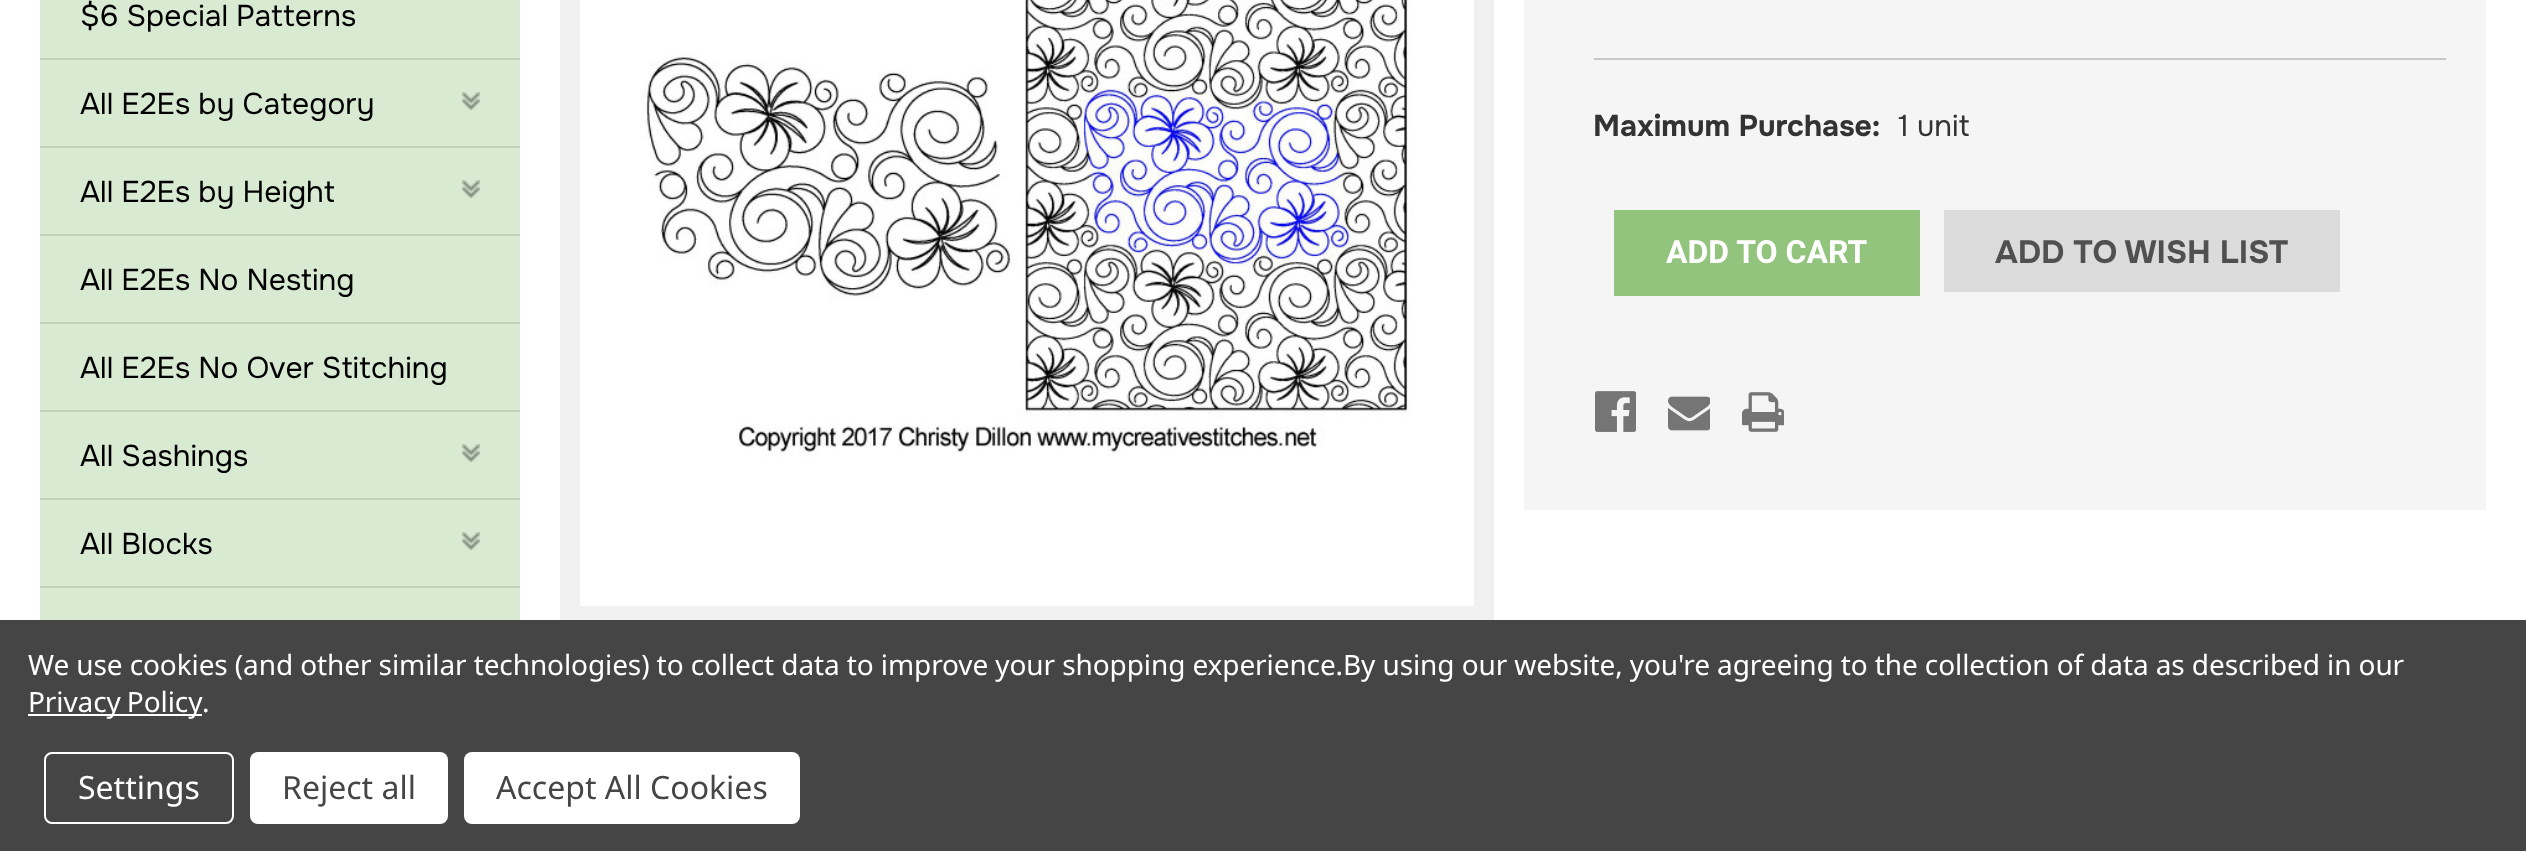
<svg xmlns="http://www.w3.org/2000/svg" width="2526" height="851">
<rect width="100%" height="100%" fill="#fff"/>
<rect x="40" width="480" height="620" fill="#d9ead3"/>
<rect x="40" y="58" width="480" height="2" fill="#c3d2bd"/>
<text x="80" y="26" style="font-family:Onest;font-size:30px;fill:#000">$6 Special Patterns</text>
<rect x="40" y="146" width="480" height="2" fill="#c3d2bd"/>
<text x="80" y="114" style="font-family:Onest;font-size:30px;fill:#000">All E2Es by Category</text>
<image x="462" y="92" width="18" height="18" href="media/1.png"/>
<rect x="40" y="234" width="480" height="2" fill="#c3d2bd"/>
<text x="80" y="202" style="font-family:Onest;font-size:30px;fill:#000">All E2Es by Height</text>
<image x="462" y="180" width="18" height="18" href="media/1.png"/>
<rect x="40" y="322" width="480" height="2" fill="#c3d2bd"/>
<text x="80" y="290" style="font-family:Onest;font-size:30px;fill:#000">All E2Es No Nesting</text>
<rect x="40" y="410" width="480" height="2" fill="#c3d2bd"/>
<text x="80" y="378" style="font-family:Onest;font-size:30px;fill:#000">All E2Es No Over Stitching</text>
<rect x="40" y="498" width="480" height="2" fill="#c3d2bd"/>
<text x="80" y="466" style="font-family:Onest;font-size:30px;fill:#000">All Sashings</text>
<image x="462" y="444" width="18" height="18" href="media/1.png"/>
<rect x="40" y="586" width="480" height="2" fill="#c3d2bd"/>
<text x="80" y="554" style="font-family:Onest;font-size:30px;fill:#000">All Blocks</text>
<image x="462" y="532" width="18" height="18" href="media/1.png"/>
<rect x="570" y="-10" width="914" height="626" fill="none" stroke="#f0f0f0" stroke-width="20"/>
<image x="640" y="0" width="773" height="457" href="media/2.png"/>
<rect x="1524" width="962" height="510" fill="#f5f5f5"/>
<rect x="1594" y="58" width="852" height="2" fill="#c8c8c8"/>
<text x="1593" y="136" style="font-family:Onest;font-size:30px;font-weight:bold;fill:#333">Maximum Purchase:</text>
<text x="1898" y="136" style="font-family:Onest;font-size:30px;fill:#333">1 unit</text>
<rect x="1614" y="210" width="306" height="86" fill="#93c47d"/>
<text x="1666" y="263" style="font-family:Roboto;font-size:32px;font-weight:bold;fill:#fff">ADD TO CART</text>
<rect x="1944" y="210" width="396" height="82" fill="#dbdbdb"/>
<text x="1995" y="263" style="font-family:Onest;font-size:32px;font-weight:bold;fill:#505050">ADD TO WISH LIST</text>
<image x="1595" y="391" width="41" height="41" href="media/3.png"/>
<image x="1668" y="396" width="42" height="35" href="media/4.png"/>
<image x="1742" y="392" width="42" height="40" href="media/5.png"/>
<rect y="620" width="2526" height="231" fill="#454545"/>
<text x="28" y="675" style="font-family:Noto Sans;font-size:28px;letter-spacing:-0.1px;fill:#fff">We use cookies (and other similar technologies) to collect data to improve your shopping experience.By using our website, you're agreeing to the collection of data as described in our</text>
<rect x="28" y="714" width="174" height="2" fill="#fff"/>
<text x="28" y="712" word-spacing="-1" style="font-family:Noto Sans;font-size:28px;letter-spacing:-0.1px;fill:#fff">Privacy Policy</text>
<text x="202" y="712" style="font-family:Noto Sans;font-size:28px;letter-spacing:-0.1px;fill:#fff">.</text>
<rect x="45" y="753" width="188" height="70" rx="7" fill="none" stroke="#fff" stroke-width="2"/>
<text x="78" y="799" style="font-family:Noto Sans;font-size:32px;fill:#fff">Settings</text>
<rect x="250" y="752" width="198" height="72" rx="8" fill="#fff"/>
<text x="282" y="799" style="font-family:Noto Sans;font-size:32px;fill:#454545">Reject all</text>
<rect x="464" y="752" width="336" height="72" rx="8" fill="#fff"/>
<text x="496" y="799" style="font-family:Noto Sans;font-size:32px;fill:#454545">Accept All Cookies</text>
</svg>
